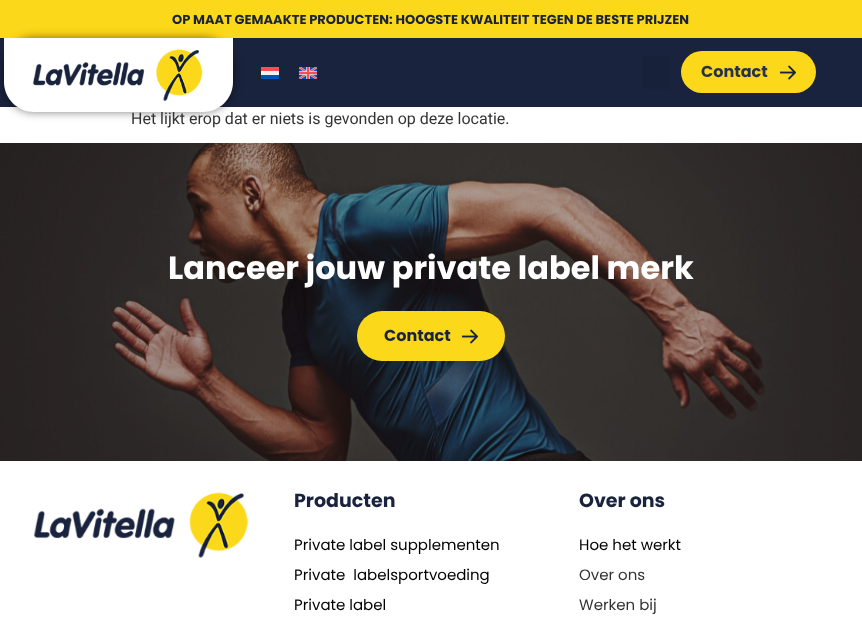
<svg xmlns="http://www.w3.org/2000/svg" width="862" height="622">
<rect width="100%" height="100%" fill="#fff"/>
<rect width="862" height="38" fill="#fcd81a"/>
<text x="172" y="24" style="font-family:Poppins;font-size:13px;font-weight:bold;fill:#19233d">OP MAAT GEMAAKTE PRODUCTEN: HOOGSTE KWALITEIT TEGEN DE BESTE PRIJZEN</text>
<rect y="38" width="862" height="69" fill="#19233d"/>
<rect x="4" y="38" width="229" height="74" rx="30" fill="#00000080" filter="blur(5px)"/>
<path d="M4 38h229v44c0 16.5-13.5 30-30 30h-169c-16.5 0-30-13.5-30-30z" fill="#fff"/>
<image x="32" y="49" width="171" height="53" href="media/1.png"/>
<rect x="261" y="67" width="18" height="4" fill="#ff4b55"/>
<rect x="261" y="71" width="18" height="4" fill="#f0f0f0"/>
<rect x="261" y="75" width="18" height="4" fill="#0052b4"/>
<image x="299" y="67" width="18" height="12" href="media/2.png"/>
<rect x="643" y="56" width="28" height="33" rx="3" fill="#18213a"/>
<rect x="681" y="51" width="135" height="42" rx="21" fill="#fcd81a"/>
<text x="701" y="77" style="font-family:Poppins;font-size:16px;font-weight:bold;fill:#28314a">Contact</text>
<image x="780" y="65" width="16" height="15" href="media/3.png"/>
<text x="131" y="124" style="font-family:Roboto;font-size:16px;fill:#333">Het lijkt erop dat er niets is gevonden op deze locatie.</text>
<image x="0" y="143" width="862" height="318" href="media/4.png"/>
<text x="168" y="279" style="font-family:Poppins;font-size:32px;font-weight:bold;fill:#fff">Lanceer jouw private label merk</text>
<rect x="357" y="311" width="148" height="50" rx="25" fill="#fcd81a"/>
<text x="384" y="341" style="font-family:Poppins;font-size:16px;font-weight:bold;fill:#19233d">Contact</text>
<image x="462" y="329" width="16" height="15" href="media/3.png"/>
<image x="33" y="492" width="216" height="67" href="media/5.png"/>
<text x="294" y="507" style="font-family:Poppins;font-size:19px;font-weight:bold;fill:#19233d">Producten</text>
<text x="294" y="550" style="font-family:Poppins;font-size:15px;fill:#000">Private label supplementen</text>
<text x="294" y="580" word-spacing="4" style="font-family:Poppins;font-size:15px;fill:#000">Private labelsportvoeding</text>
<text x="294" y="610" style="font-family:Poppins;font-size:15px;fill:#000">Private label</text>
<text x="579" y="507" style="font-family:Poppins;font-size:19px;font-weight:bold;fill:#19233d">Over ons</text>
<text x="579" y="550" style="font-family:Poppins;font-size:15px;fill:#000">Hoe het werkt</text>
<text x="579" y="580" style="font-family:Poppins;font-size:15px;fill:#333">Over ons</text>
<text x="579" y="610" style="font-family:Poppins;font-size:15px;fill:#333">Werken bij</text>
</svg>
